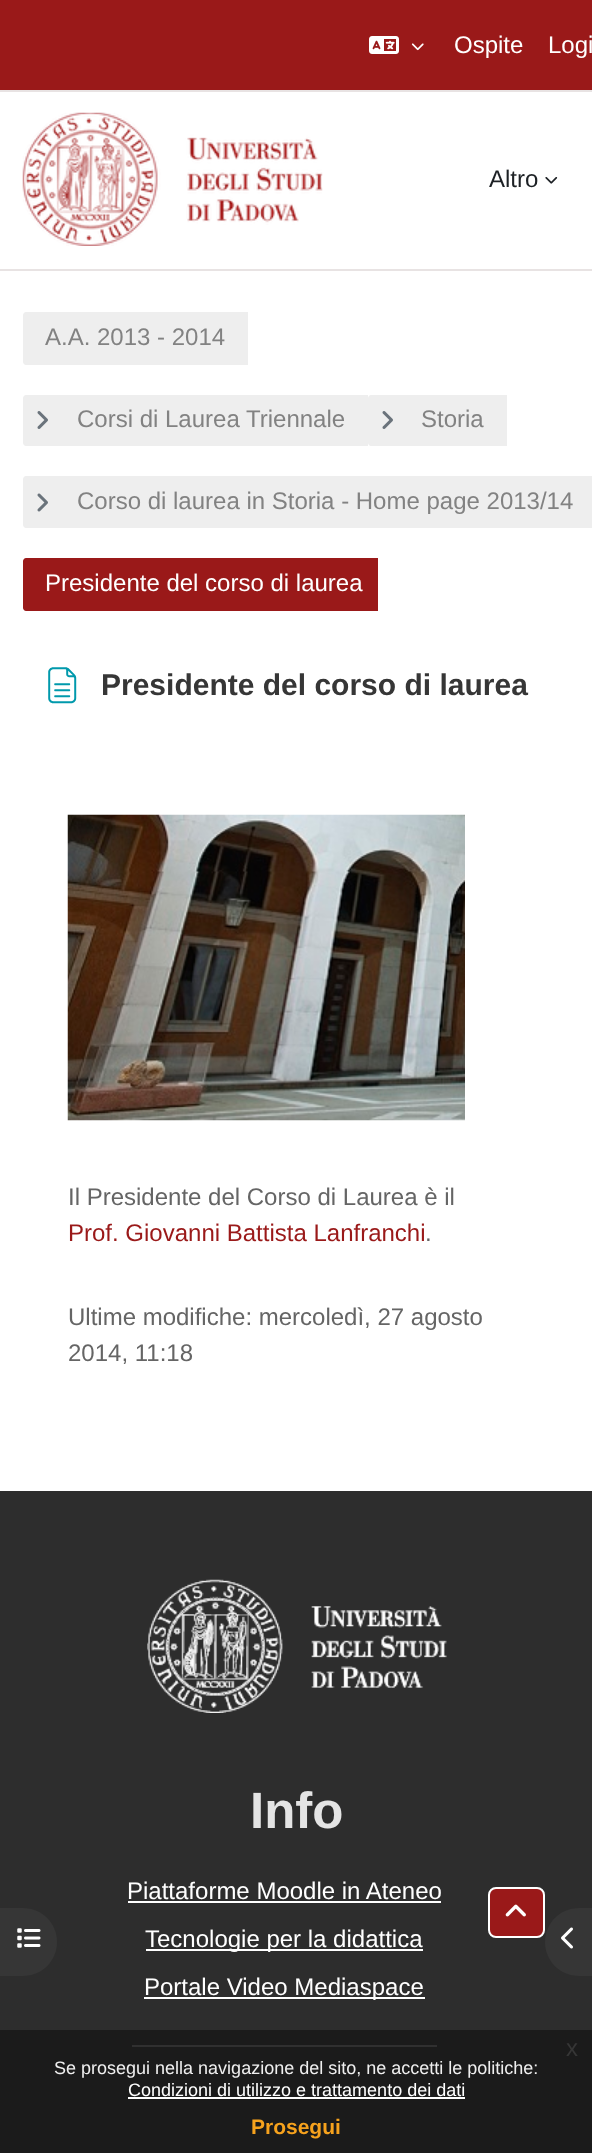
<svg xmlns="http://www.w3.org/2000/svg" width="592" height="2153">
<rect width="100%" height="100%" fill="#fff"/>
<rect width="592" height="90" fill="#9a1919"/>
<rect y="90" width="592" height="2" fill="#e8e3e3"/>
<image x="369" y="36" width="30" height="18" href="media/1.png"/>
<image x="411" y="43" width="13" height="8" href="media/2.png"/>
<text x="454" y="53" style="font-family:Liberation Sans;font-size:24px;fill:#fff">Ospite</text>
<text x="548" y="53" style="font-family:Liberation Sans;font-size:24px;fill:#fff">Logi</text>
<rect y="269" width="592" height="2" fill="#e8e3e3"/>
<image x="22" y="112" width="301" height="134" href="media/3.png"/>
<text x="489" y="187" style="font-family:Liberation Sans;font-size:24px;fill:#1d2125">Altro</text>
<image x="545" y="177" width="13" height="7" href="media/4.png"/>
<path d="M26 312h222v53h-222c-1.5 0-3-1.5-3-3v-47c0-1.5 1.5-3 3-3z" fill="#eee"/>
<text x="45" y="345" style="font-family:Liberation Sans;font-size:24px;fill:#828282">A.A. 2013 - 2014</text>
<path d="M26 395h342v51h-342c-1.5 0-3-1.5-3-3v-45c0-1.5 1.5-3 3-3z" fill="#eee"/>
<image x="37" y="411" width="11" height="18" href="media/5.png"/>
<text x="77" y="427" style="font-family:Liberation Sans;font-size:24px;fill:#828282">Corsi di Laurea Triennale</text>
<path d="M371 395h136v51h-136c-1.5 0-3-1.5-3-3v-45c0-1.5 1.5-3 3-3z" fill="#eee"/>
<image x="382" y="411" width="11" height="18" href="media/5.png"/>
<text x="421" y="427" style="font-family:Liberation Sans;font-size:24px;fill:#828282">Storia</text>
<path d="M26 476h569v52h-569c-1.5 0-3-1.5-3-3v-46c0-1.5 1.5-3 3-3z" fill="#eee"/>
<image x="37" y="493" width="11" height="19" href="media/6.png"/>
<text x="77" y="509" style="font-family:Liberation Sans;font-size:24px;fill:#828282">Corso di laurea in Storia - Home page 2013/14</text>
<path d="M26 558h352v53h-352c-1.5 0-3-1.5-3-3v-47c0-1.5 1.5-3 3-3z" fill="#9a1919"/>
<text x="45" y="591" style="font-family:Liberation Sans;font-size:24px;fill:#fff">Presidente del corso di laurea</text>
<image x="48" y="667" width="29" height="37" href="media/7.png"/>
<text x="101" y="695" style="font-family:Liberation Sans;font-size:30px;font-weight:bold;fill:#363636">Presidente del corso di laurea</text>
<image x="67" y="814" width="398" height="307" href="media/8.png"/>
<text x="68" y="1205" style="font-family:Liberation Sans;font-size:24px;fill:#656565">Il Presidente del Corso di Laurea è il</text>
<text x="68" y="1241" style="font-family:Liberation Sans;font-size:24px;fill:#9a1919">Prof. Giovanni Battista Lanfranchi</text>
<text x="425" y="1241" style="font-family:Liberation Sans;font-size:24px;fill:#656565">.</text>
<text x="68" y="1325" style="font-family:Liberation Sans;font-size:24px;fill:#656565">Ultime modifiche: mercoledì, 27 agosto</text>
<text x="68" y="1361" style="font-family:Liberation Sans;font-size:24px;fill:#656565">2014, 11:18</text>
<rect y="1491" width="592" height="662" fill="#2d2d2d"/>
<path d="M0 1908h23c19 0 34 15 34 34c0 19-15 34-34 34h-23z" fill="#363636"/>
<image x="17" y="1928" width="24" height="20" href="media/9.png"/>
<path d="M579 1908h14v68h-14c-19 0-34-15-34-34c0-19 15-34 34-34z" fill="#363636"/>
<image x="561" y="1927" width="12" height="22" href="media/10.png"/>
<image x="147" y="1579" width="300" height="134" href="media/11.png"/>
<text x="250" y="1828" style="font-family:Liberation Sans;font-size:51px;font-weight:bold;fill:#e4e4e4">Info</text>
<text x="127" y="1899" style="font-family:Liberation Sans;font-size:24px;fill:#fff">Piattaforme Moodle in Ateneo</text>
<rect x="128" y="1901" width="313" height="2" fill="#fff"/>
<rect x="146" y="1949" width="277" height="2" fill="#fff"/>
<text x="145" y="1947" style="font-family:Liberation Sans;font-size:24px;fill:#fff">Tecnologie per la didattica</text>
<rect x="144" y="1997" width="281" height="2" fill="#fff"/>
<text x="144" y="1995" style="font-family:Liberation Sans;font-size:24px;fill:#fff">Portale Video Mediaspace</text>
<rect x="132" y="2045" width="305" height="2" fill="#fff"/>
<rect x="489" y="1888" width="55" height="49" rx="7" fill="#9a1919" stroke="#fff" stroke-width="2"/>
<image x="505" y="1904" width="21" height="13" href="media/12.png"/>
<rect y="2030" width="592" height="123" fill="#191919e6"/>
<text x="566" y="2056" style="font-family:Liberation Sans;font-size:24px;fill:#363636">x</text>
<text x="54" y="2074" style="font-family:Liberation Sans;font-size:18px;fill:#efefef">Se prosegui nella navigazione del sito, ne accetti le politiche:</text>
<text x="128" y="2096" style="font-family:Liberation Sans;font-size:18px;fill:#fff">Condizioni di utilizzo e trattamento dei dati</text>
<rect x="128" y="2097" width="337" height="2" fill="#fff"/>
<text x="251" y="2134" style="font-family:Liberation Sans;font-size:21px;font-weight:bold;fill:#f6a21d">Prosegui</text>
</svg>
